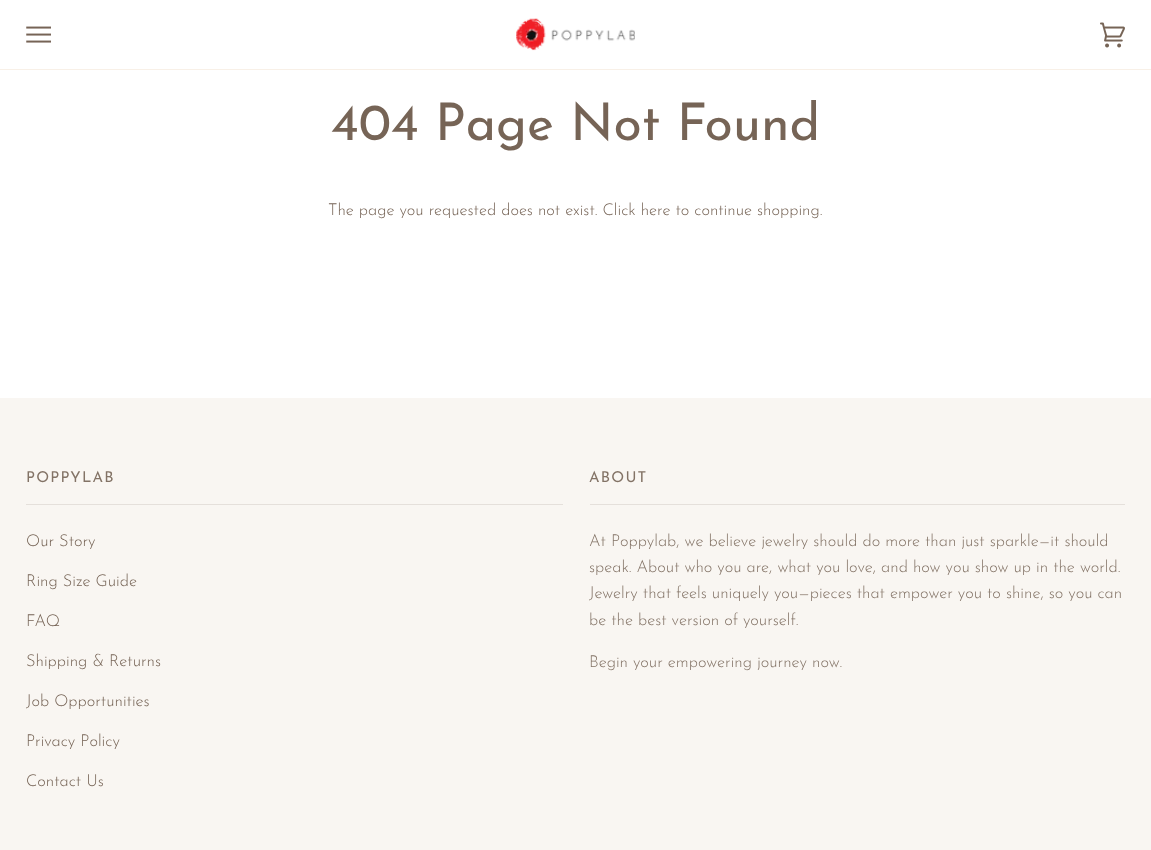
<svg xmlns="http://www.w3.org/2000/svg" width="1151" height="850">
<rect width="100%" height="100%" fill="#fff"/>
<rect y="69" width="1151" height="1" fill="#f8f0e7"/>
<image x="26" y="26" width="25" height="17" href="media/1.png"/>
<image x="516" y="18" width="119" height="33" href="media/2.png"/>
<image x="1100" y="22" width="25" height="26" href="media/3.png"/>
<text x="331" y="140" style="font-family:Josefin Sans;font-size:51.75px;fill:#766456">404 Page Not Found</text>
<text x="328" y="215" style="font-family:Josefin Sans;font-size:16.4px;font-weight:300;fill:#766456">The page you requested does not exist. Click here to continue shopping.</text>
<rect y="398" width="1151" height="452" fill="#f9f6f2"/>
<rect x="26" y="504" width="537" height="1" fill="#e5e0db"/>
<text x="26" y="482" style="font-family:Josefin Sans;font-size:15px;letter-spacing:1.25px;fill:#837366">POPPYLAB</text>
<text x="26" y="546" style="font-family:Josefin Sans;font-size:16.4px;font-weight:300;fill:#766456">Our Story</text>
<text x="26" y="586" style="font-family:Josefin Sans;font-size:16.4px;font-weight:300;fill:#766456">Ring Size Guide</text>
<text x="26" y="626" style="font-family:Josefin Sans;font-size:16.4px;font-weight:300;fill:#766456">FAQ</text>
<text x="26" y="666" style="font-family:Josefin Sans;font-size:16.4px;font-weight:300;fill:#766456">Shipping &amp; Returns</text>
<text x="26" y="706" style="font-family:Josefin Sans;font-size:16.4px;font-weight:300;fill:#766456">Job Opportunities</text>
<text x="26" y="746" style="font-family:Josefin Sans;font-size:16.4px;font-weight:300;fill:#766456">Privacy Policy</text>
<text x="26" y="786" style="font-family:Josefin Sans;font-size:16.4px;font-weight:300;fill:#766456">Contact Us</text>
<rect x="590" y="504" width="535" height="1" fill="#e5e0db"/>
<text x="589" y="482" style="font-family:Josefin Sans;font-size:15px;letter-spacing:1.25px;fill:#837366">ABOUT</text>
<text x="589" y="546" style="font-family:Josefin Sans;font-size:16.4px;font-weight:300;fill:#837366">At Poppylab, we believe jewelry should do more than just sparkle—it should</text>
<text x="589" y="572" style="font-family:Josefin Sans;font-size:16.4px;font-weight:300;fill:#837366">speak. About who you are, what you love, and how you show up in the world.</text>
<text x="589" y="598" style="font-family:Josefin Sans;font-size:16.4px;font-weight:300;fill:#837366">Jewelry that feels uniquely you—pieces that empower you to shine, so you can</text>
<text x="589" y="625" style="font-family:Josefin Sans;font-size:16.4px;font-weight:300;fill:#837366">be the best version of yourself.</text>
<text x="589" y="667" style="font-family:Josefin Sans;font-size:16.4px;font-weight:300;fill:#837366">Begin your empowering journey now.</text>
</svg>
